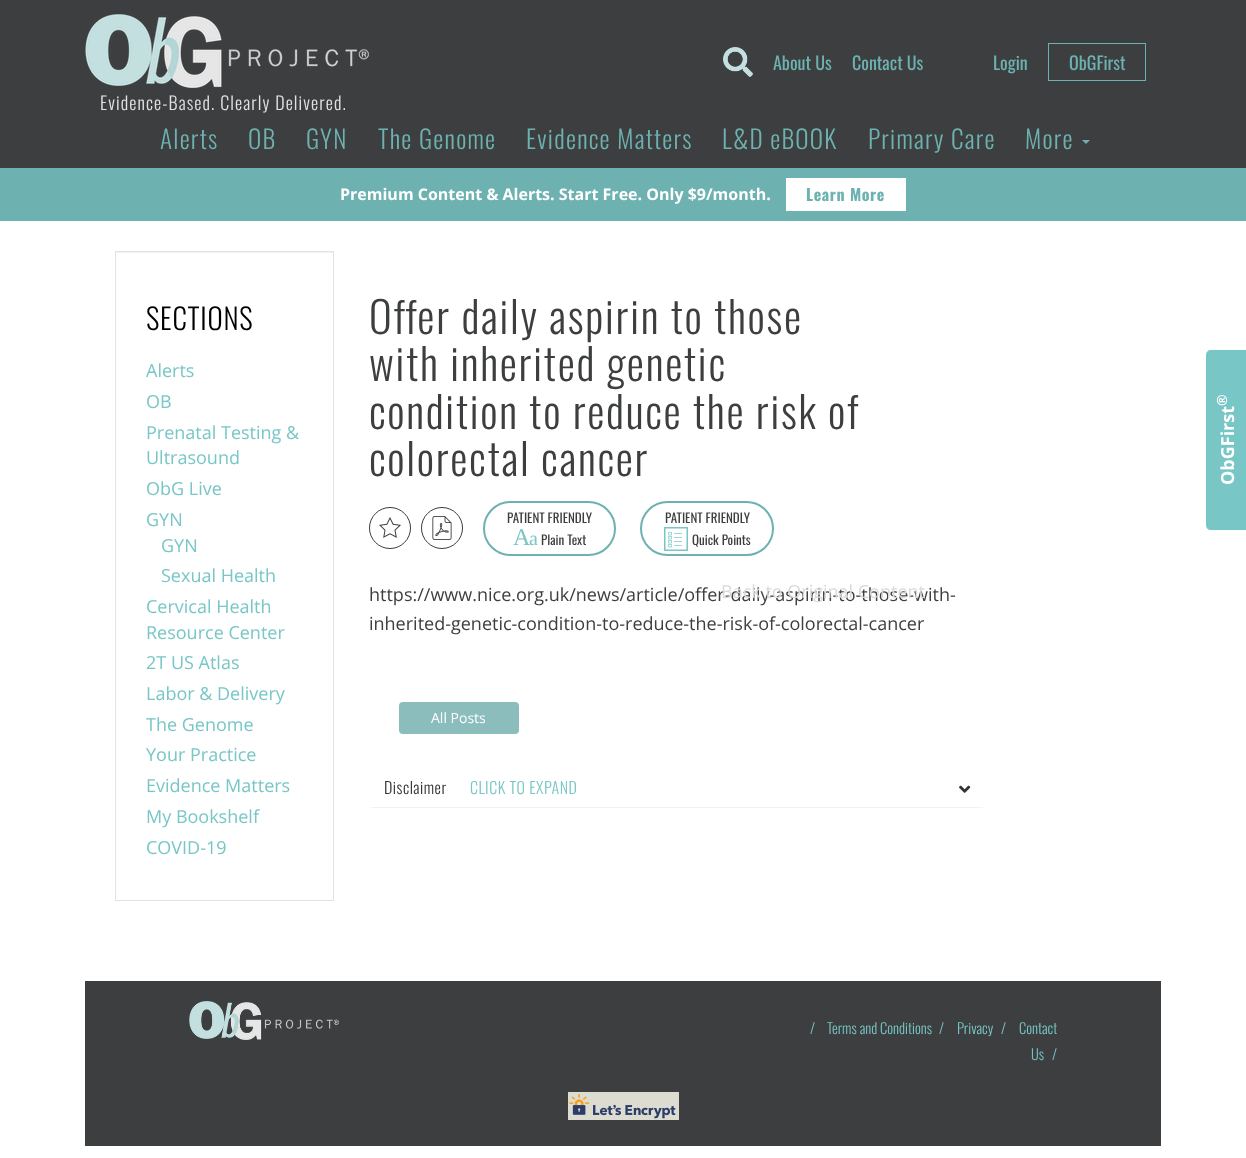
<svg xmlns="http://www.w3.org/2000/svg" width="1246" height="1158">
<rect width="100%" height="100%" fill="#fff"/>
<rect width="1246" height="168" fill="#3d3e3f"/>
<image x="723" y="47" width="30" height="30" href="media/1.png"/>
<text x="773" y="70" style="font-family:Oswald;font-size:18px;fill:#6db1b1">About Us</text>
<text x="852" y="70" style="font-family:Oswald;font-size:18px;fill:#6db1b1">Contact Us</text>
<text x="993" y="70" style="font-family:Oswald;font-size:18px;fill:#6db1b1">Login</text>
<rect x="1048.5" y="43.5" width="97" height="37" fill="none" stroke="#6db1b1"/>
<text x="1069" y="70" style="font-family:Oswald;font-size:18px;fill:#6db1b1">ObGFirst</text>
<image x="85" y="14" width="284" height="74" href="media/2.png"/>
<text x="100" y="110" style="font-family:Oswald;font-size:18px;font-weight:300;letter-spacing:1.1px;fill:#e2e2e3">Evidence-Based. Clearly Delivered.</text>
<text x="160" y="149" style="font-family:Oswald;font-size:25.25px;font-weight:300;letter-spacing:1.25px;fill:#6db1b1">Alerts</text>
<text x="248" y="149" style="font-family:Oswald;font-size:25.25px;font-weight:300;letter-spacing:1.25px;fill:#6db1b1">OB</text>
<text x="306" y="149" style="font-family:Oswald;font-size:25.25px;font-weight:300;letter-spacing:1.25px;fill:#6db1b1">GYN</text>
<text x="378" y="149" style="font-family:Oswald;font-size:25.25px;font-weight:300;letter-spacing:1.25px;fill:#6db1b1">The Genome</text>
<text x="526" y="149" style="font-family:Oswald;font-size:25.25px;font-weight:300;letter-spacing:1.25px;fill:#6db1b1">Evidence Matters</text>
<text x="722" y="149" style="font-family:Oswald;font-size:25.25px;font-weight:300;letter-spacing:1.25px;fill:#6db1b1">L&amp;D eBOOK</text>
<text x="868" y="149" style="font-family:Oswald;font-size:25.25px;font-weight:300;letter-spacing:1.25px;fill:#6db1b1">Primary Care</text>
<text x="1025" y="149" style="font-family:Oswald;font-size:25.25px;font-weight:300;letter-spacing:1.25px;fill:#6db1b1">More</text>
<path d="M1082 140h8l-4 4z" fill="#6db1b1"/>
<rect y="168" width="1246" height="53" fill="#6db1b1"/>
<text x="340" y="200" style="font-family:Open Sans;font-size:16px;font-weight:bold;fill:#fff">Premium Content &amp; Alerts. Start Free. Only $9/month.</text>
<rect x="786" y="178" width="120" height="33" fill="#fff"/>
<text x="806" y="201" style="font-family:Oswald;font-size:16px;font-weight:bold;letter-spacing:0.6px;fill:#6db1b1">Learn More</text>
<rect x="116" y="252" width="217" height="1" fill="#f2f2f2"/>
<rect x="115.5" y="251.5" width="218" height="649" fill="none" stroke="#e3e3e3"/>
<text x="146" y="330" style="font-family:Oswald;font-size:29px;font-weight:300;letter-spacing:0.75px;fill:#000">SECTIONS</text>
<text x="146" y="377" style="font-family:Open Sans;font-size:18px;fill:#78c6c6">Alerts</text>
<text x="146" y="408" style="font-family:Open Sans;font-size:18px;fill:#78c6c6">OB</text>
<text x="146" y="439" style="font-family:Open Sans;font-size:18px;fill:#78c6c6">Prenatal Testing &amp;</text>
<text x="146" y="464" style="font-family:Open Sans;font-size:18px;fill:#78c6c6">Ultrasound</text>
<text x="146" y="495" style="font-family:Open Sans;font-size:18px;fill:#78c6c6">ObG Live</text>
<text x="146" y="526" style="font-family:Open Sans;font-size:18px;fill:#78c6c6">GYN</text>
<text x="161" y="552" style="font-family:Open Sans;font-size:18px;fill:#78c6c6">GYN</text>
<text x="161" y="582" style="font-family:Open Sans;font-size:18px;fill:#78c6c6">Sexual Health</text>
<text x="146" y="613" style="font-family:Open Sans;font-size:18px;fill:#78c6c6">Cervical Health</text>
<text x="146" y="639" style="font-family:Open Sans;font-size:18px;fill:#78c6c6">Resource Center</text>
<text x="146" y="669" style="font-family:Open Sans;font-size:18px;fill:#78c6c6">2T US Atlas</text>
<text x="146" y="700" style="font-family:Open Sans;font-size:18px;fill:#78c6c6">Labor &amp; Delivery</text>
<text x="146" y="731" style="font-family:Open Sans;font-size:18px;fill:#78c6c6">The Genome</text>
<text x="146" y="761" style="font-family:Open Sans;font-size:18px;fill:#78c6c6">Your Practice</text>
<text x="146" y="792" style="font-family:Open Sans;font-size:18px;fill:#78c6c6">Evidence Matters</text>
<text x="146" y="823" style="font-family:Open Sans;font-size:18px;fill:#78c6c6">My Bookshelf</text>
<text x="146" y="854" style="font-family:Open Sans;font-size:18px;fill:#78c6c6">COVID-19</text>
<text x="369" y="334" style="font-family:Oswald;font-size:43.25px;font-weight:300;letter-spacing:1.75px;fill:#3d3e3f">Offer daily aspirin to those</text>
<text x="369" y="381" style="font-family:Oswald;font-size:43.25px;font-weight:300;letter-spacing:1.75px;fill:#3d3e3f">with inherited genetic</text>
<text x="369" y="429" style="font-family:Oswald;font-size:43.25px;font-weight:300;letter-spacing:1.75px;fill:#3d3e3f">condition to reduce the risk of</text>
<text x="369" y="476" style="font-family:Oswald;font-size:43.25px;font-weight:300;letter-spacing:1.75px;fill:#3d3e3f">colorectal cancer</text>
<image x="379" y="517" width="22" height="21" href="media/3.png"/>
<circle cx="390" cy="528" r="20.5" fill="none" stroke="#3d3d3d"/>
<circle cx="442" cy="528" r="20.5" fill="none" stroke="#3d3d3d"/>
<image x="432" y="516" width="20" height="24" href="media/4.png"/>
<rect x="484" y="502" width="131" height="53" rx="26.5" fill="none" stroke="#6db1b1" stroke-width="2"/>
<text x="507" y="523" style="font-family:Oswald;font-size:13px;fill:#3d3e3f">PATIENT FRIENDLY</text>
<text x="513" y="545" style="font-family:Liberation Serif;font-size:24px;fill:#78c6c6">A</text>
<text x="529" y="545" style="font-family:Liberation Serif;font-size:20px;fill:#78c6c6">a</text>
<text x="541" y="545" style="font-family:Oswald;font-size:13px;fill:#3d3e3f">Plain Text</text>
<rect x="641" y="502" width="132" height="53" rx="26.5" fill="none" stroke="#6db1b1" stroke-width="2"/>
<text x="665" y="523" style="font-family:Oswald;font-size:13px;fill:#3d3e3f">PATIENT FRIENDLY</text>
<image x="664" y="527" width="24" height="24" href="media/5.png"/>
<text x="692" y="545" style="font-family:Oswald;font-size:13px;fill:#3d3e3f">Quick Points</text>
<text x="369" y="601" style="font-family:Open Sans;font-size:18px;fill:#3d3e3f">https://www.nice.org.uk/news/article/offer-daily-aspirin-to-those-with-</text>
<text x="721" y="598" style="font-family:Open Sans;font-size:18px;fill:#dadadb">Back to Original Content</text>
<text x="369" y="630" style="font-family:Open Sans;font-size:18px;fill:#3d3e3f">inherited-genetic-condition-to-reduce-the-risk-of-colorectal-cancer</text>
<rect x="399" y="702" width="120" height="32" rx="4" fill="#8cbdbd"/>
<text x="431" y="723" style="font-family:Open Sans;font-size:14px;fill:#fff">All Posts</text>
<rect x="369" y="770" width="616" height="38" rx="4" fill="#0000000d" filter="blur(0.5px)"/>
<rect x="369" y="770" width="616" height="37" fill="#fff"/>
<text x="384" y="794" style="font-family:Oswald;font-size:16px;font-weight:300;letter-spacing:0.5px;fill:#333">Disclaimer</text>
<text x="470" y="794" style="font-family:Oswald;font-size:16px;font-weight:300;letter-spacing:0.5px;fill:#78c6c6">CLICK TO EXPAND</text>
<image x="959" y="785" width="12" height="8" href="media/6.png"/>
<rect x="85" y="981" width="1076" height="165" fill="#3d3e3f"/>
<image x="189" y="1001" width="150" height="39" href="media/7.png"/>
<text x="810" y="1034" style="font-family:Oswald;font-size:14.5px;font-weight:300;fill:#78c6c6">/</text>
<text x="827" y="1034" style="font-family:Oswald;font-size:14.5px;font-weight:300;fill:#78c6c6">Terms and Conditions</text>
<text x="939" y="1034" style="font-family:Oswald;font-size:14.5px;font-weight:300;fill:#78c6c6">/</text>
<text x="957" y="1034" style="font-family:Oswald;font-size:14.5px;font-weight:300;fill:#78c6c6">Privacy</text>
<text x="1001" y="1034" style="font-family:Oswald;font-size:14.5px;font-weight:300;fill:#78c6c6">/</text>
<text x="1019" y="1034" style="font-family:Oswald;font-size:14.5px;font-weight:300;fill:#78c6c6">Contact</text>
<text x="1031" y="1060" style="font-family:Oswald;font-size:14.5px;font-weight:300;fill:#78c6c6">Us</text>
<text x="1052" y="1060" style="font-family:Oswald;font-size:14.5px;font-weight:300;fill:#78c6c6">/</text>
<image x="568" y="1092" width="111" height="28" href="media/8.png"/>
<path d="M1206 525v-170c0-3 2-5 5-5h35v180h-35c-3 0-5-2-5-5z" fill="#78c6c6"/>
<text x="1227" y="406" transform="rotate(-90 1227 406)" style="font-family:Open Sans;font-size:14px;font-weight:bold;fill:#fff">®</text>
<text x="1234" y="485" transform="rotate(-90 1234 485)" style="font-family:Open Sans;font-size:18px;font-weight:bold;fill:#fff">ObGFirst</text>
</svg>
